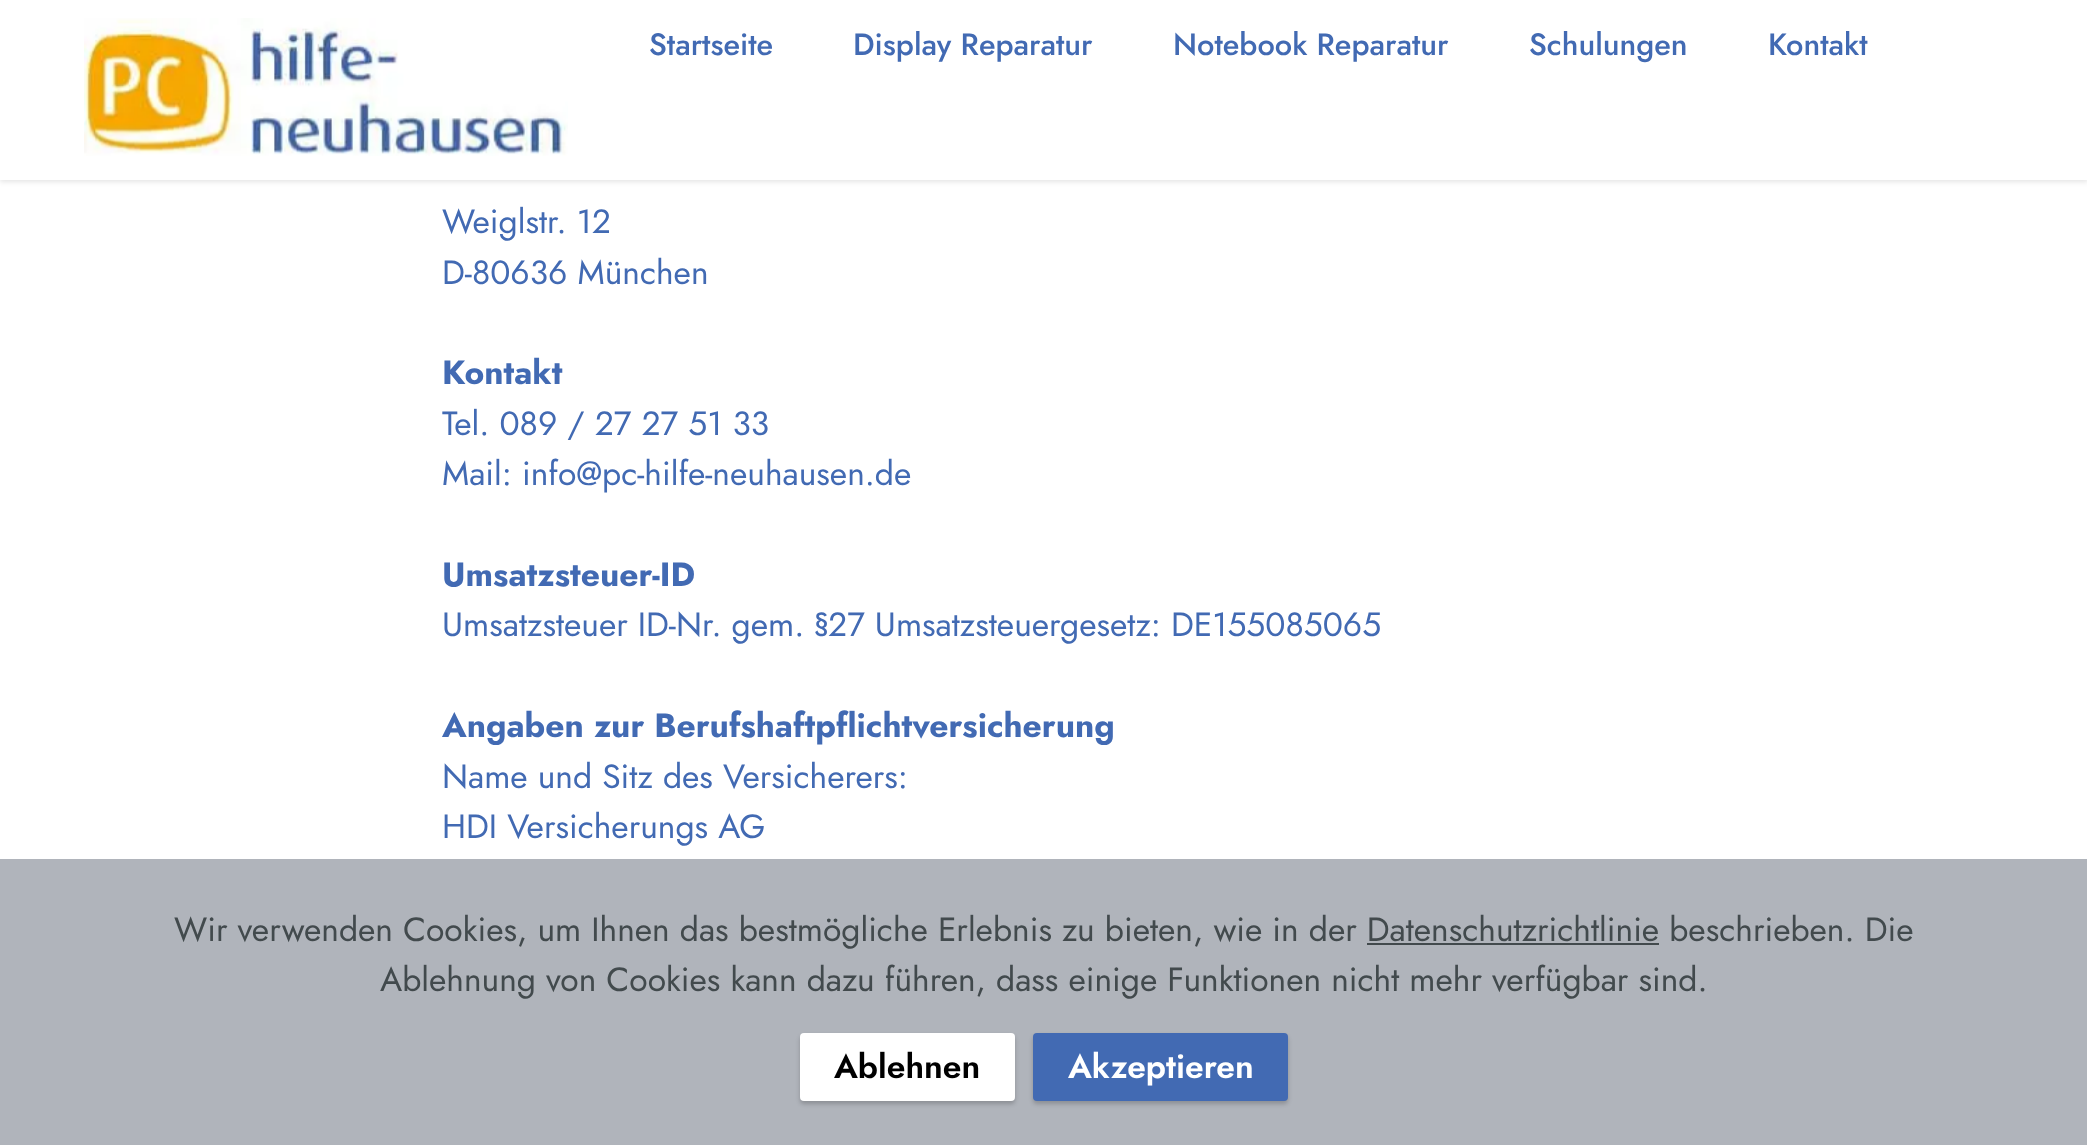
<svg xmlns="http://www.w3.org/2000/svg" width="2087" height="1145">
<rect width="100%" height="100%" fill="#fff"/>
<rect y="2" width="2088" height="180" fill="#0000001a" filter="blur(2.5px)"/>
<rect width="2087" height="180" fill="#fff"/>
<image x="84" y="18" width="484" height="138" href="media/1.png"/>
<text x="649" y="55" style="font-family:Jost;font-size:30.75px;font-weight:500;fill:#426ab3">Startseite</text>
<text x="853" y="55" style="font-family:Jost;font-size:30.75px;font-weight:500;fill:#426ab3">Display Reparatur</text>
<text x="1173" y="55" style="font-family:Jost;font-size:30.75px;font-weight:500;fill:#426ab3">Notebook Reparatur</text>
<text x="1529" y="55" style="font-family:Jost;font-size:30.75px;font-weight:500;fill:#426ab3">Schulungen</text>
<text x="1768" y="55" style="font-family:Jost;font-size:30.75px;font-weight:500;fill:#426ab3">Kontakt</text>
<text x="442" y="233" style="font-family:Jost;font-size:33.6px;fill:#426ab3">Weiglstr. 12</text>
<text x="442" y="284" style="font-family:Jost;font-size:33.6px;fill:#426ab3">D-80636 München</text>
<text x="442" y="384" style="font-family:Jost;font-size:33.6px;font-weight:bold;fill:#426ab3">Kontakt</text>
<text x="442" y="435" style="font-family:Jost;font-size:33.6px;fill:#426ab3">Tel. 089 / 27 27 51 33</text>
<text x="442" y="485" style="font-family:Jost;font-size:33.6px;fill:#426ab3">Mail: info@pc-hilfe-neuhausen.de</text>
<text x="442" y="586" style="font-family:Jost;font-size:33.6px;font-weight:bold;fill:#426ab3">Umsatzsteuer-ID</text>
<text x="442" y="636" style="font-family:Jost;font-size:33.6px;fill:#426ab3">Umsatzsteuer ID-Nr. gem. §27 Umsatzsteuergesetz: DE155085065</text>
<text x="442" y="737" style="font-family:Jost;font-size:33.6px;font-weight:bold;fill:#426ab3">Angaben zur Berufshaftpflichtversicherung</text>
<text x="442" y="788" style="font-family:Jost;font-size:33.6px;fill:#426ab3">Name und Sitz des Versicherers:</text>
<text x="442" y="838" style="font-family:Jost;font-size:33.6px;fill:#426ab3">HDI Versicherungs AG</text>
<rect y="859" width="2087" height="286" fill="#b0b4bb"/>
<text x="174" y="941" style="font-family:Jost;font-size:33.6px;fill:#424a4d">Wir verwenden Cookies, um Ihnen das bestmögliche Erlebnis zu bieten, wie in der Datenschutzrichtlinie beschrieben. Die</text>
<rect x="1367" y="943" width="292" height="2" fill="#424a4d"/>
<text x="380" y="991" style="font-family:Jost;font-size:33.6px;fill:#424a4d">Ablehnung von Cookies kann dazu führen, dass einige Funktionen nicht mehr verfügbar sind.</text>
<rect x="800" y="1036" width="215" height="68" rx="4" fill="#00000033" filter="blur(2px)"/>
<rect x="800" y="1033" width="215" height="68" rx="4" fill="#fff"/>
<text x="834" y="1078" style="font-family:Jost;font-size:33.6px;font-weight:600;fill:#000">Ablehnen</text>
<rect x="1033" y="1036" width="255" height="68" rx="4" fill="#00000033" filter="blur(2px)"/>
<rect x="1033" y="1033" width="255" height="68" rx="4" fill="#426ab3"/>
<text x="1068" y="1078" style="font-family:Jost;font-size:33.6px;font-weight:600;fill:#fff">Akzeptieren</text>
</svg>
